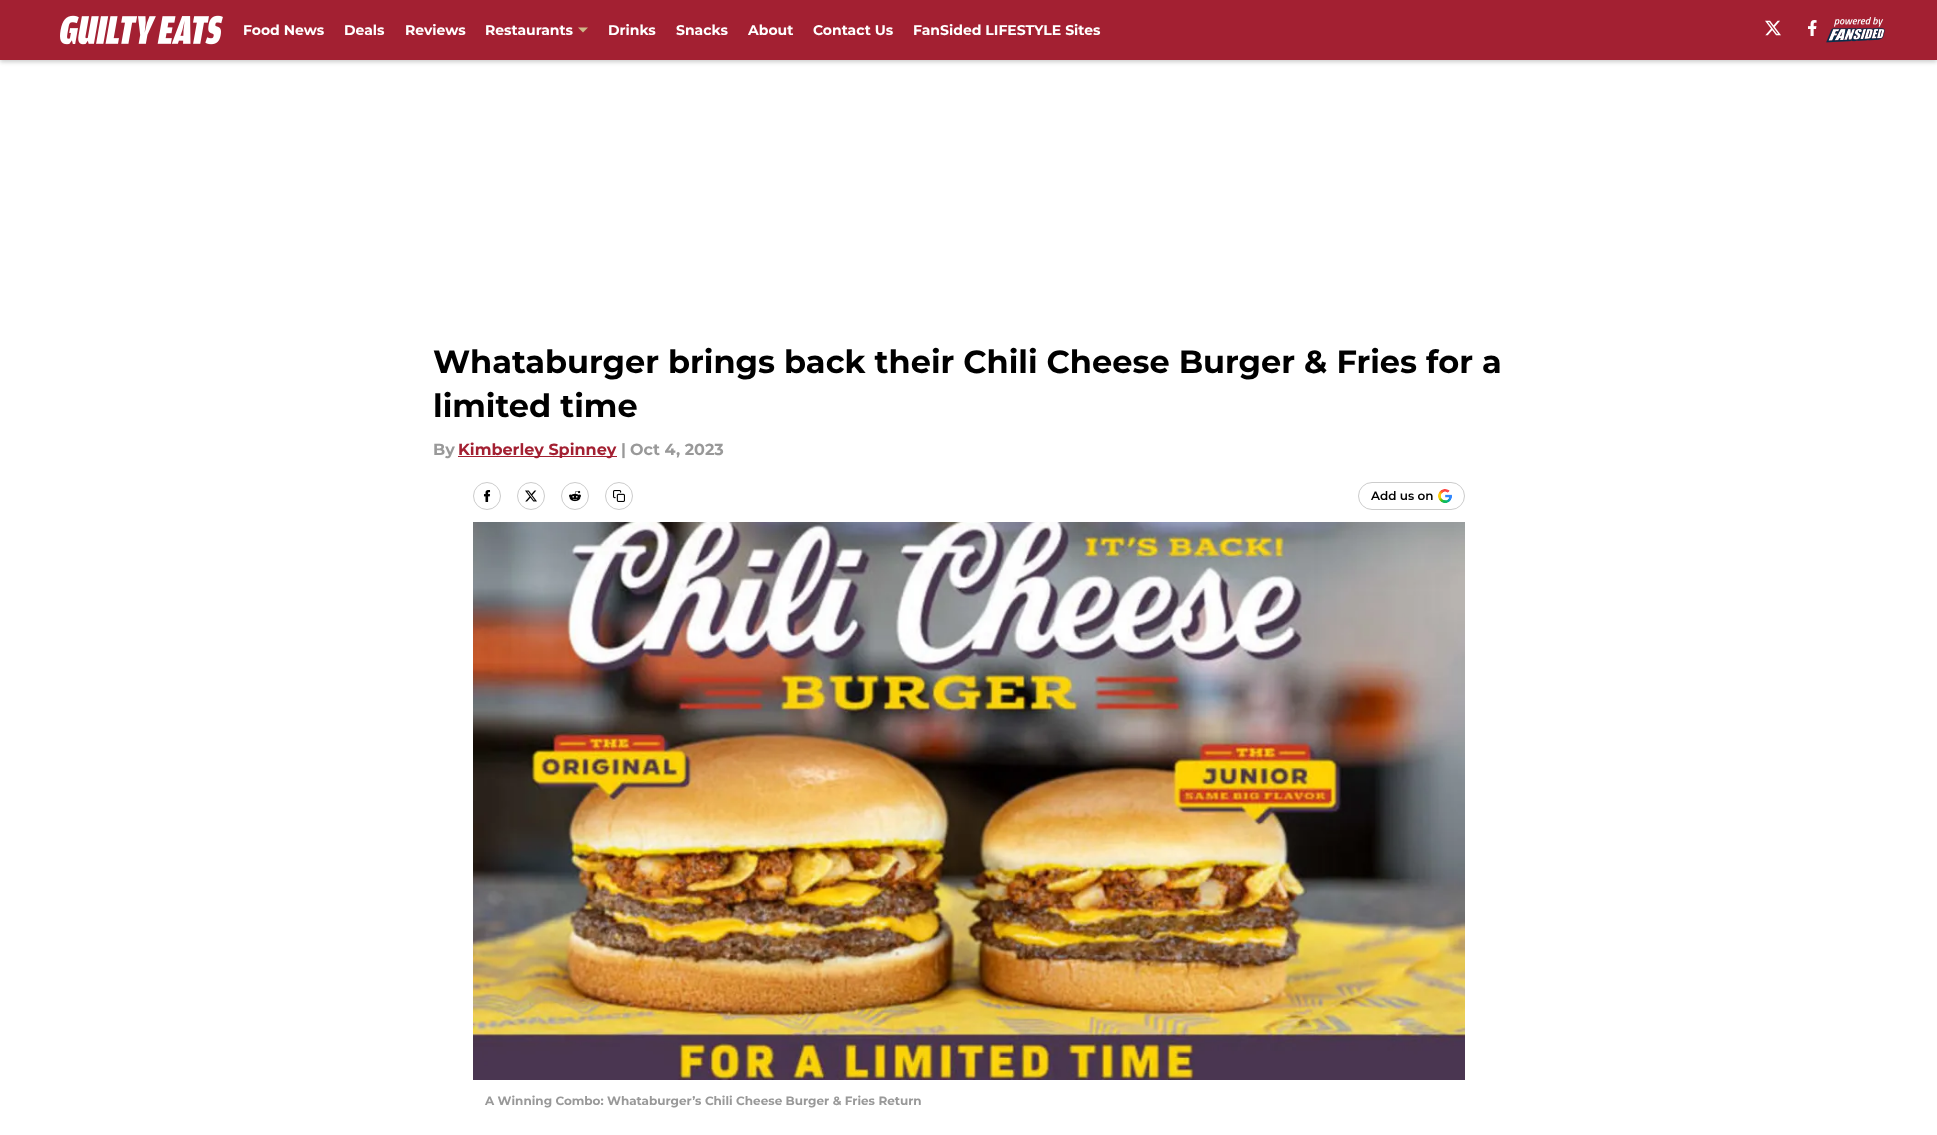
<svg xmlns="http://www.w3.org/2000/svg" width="1937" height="1135">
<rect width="100%" height="100%" fill="#fff"/>
<rect y="2" width="1937" height="60" fill="#00000033" filter="blur(2px)"/>
<rect width="1937" height="60" fill="#a32032"/>
<image x="60" y="15" width="163" height="30" href="media/1.png"/>
<text x="243" y="35" style="font-family:'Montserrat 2';font-size:14px;font-weight:100;fill:#fff">Food News</text>
<text x="344" y="35" style="font-family:'Montserrat 2';font-size:14px;font-weight:100;fill:#fff">Deals</text>
<text x="405" y="35" style="font-family:'Montserrat 2';font-size:14px;font-weight:100;fill:#fff">Reviews</text>
<text x="485" y="35" style="font-family:'Montserrat 2';font-size:14px;font-weight:100;fill:#fff">Restaurants</text>
<path d="M578 27.5l5 5l5-5z" fill="#ceb888" fill-rule="evenodd"/>
<text x="608" y="35" style="font-family:'Montserrat 2';font-size:14px;font-weight:100;fill:#fff">Drinks</text>
<text x="676" y="35" style="font-family:'Montserrat 2';font-size:14px;font-weight:100;fill:#fff">Snacks</text>
<text x="748" y="35" style="font-family:'Montserrat 2';font-size:14px;font-weight:100;fill:#fff">About</text>
<text x="813" y="35" style="font-family:'Montserrat 2';font-size:14px;font-weight:100;fill:#fff">Contact Us</text>
<text x="913" y="35" style="font-family:'Montserrat 2';font-size:14px;font-weight:100;fill:#fff">FanSided LIFESTYLE Sites</text>
<image x="1765" y="20" width="16" height="16" href="media/2.png"/>
<image x="1808" y="20" width="9" height="16" href="media/3.png"/>
<image x="1826" y="17" width="59" height="26" href="media/4.png"/>
<text x="433" y="373" style="font-family:'Montserrat 2';font-size:32px;font-weight:100;fill:#000">Whataburger brings back their Chili Cheese Burger &amp; Fries for a</text>
<text x="433" y="417" style="font-family:'Montserrat 2';font-size:32px;font-weight:100;fill:#000">limited time</text>
<text x="433" y="455" style="font-family:'Montserrat 2';font-size:16px;font-weight:100;fill:#999">By</text>
<rect x="458" y="456" width="159" height="1" fill="#a32032"/>
<text x="458" y="455" style="font-family:'Montserrat 2';font-size:16px;font-weight:100;fill:#a32032">Kimberley Spinney</text>
<text x="621" y="455" style="font-family:'Montserrat 2';font-size:16px;font-weight:100;fill:#999">|</text>
<text x="630" y="455" style="font-family:'Montserrat 2';font-size:16px;font-weight:100;fill:#999">Oct 4, 2023</text>
<circle cx="487" cy="496" r="13.5" fill="none" stroke="#ccc"/>
<image x="483" y="490" width="8" height="12" href="media/5.png"/>
<circle cx="531" cy="496" r="13.5" fill="none" stroke="#ccc"/>
<image x="525" y="490" width="12" height="12" href="media/6.png"/>
<circle cx="575" cy="496" r="13.5" fill="none" stroke="#ccc"/>
<image x="569" y="490" width="12" height="12" href="media/7.png"/>
<circle cx="619" cy="496" r="13.5" fill="none" stroke="#ccc"/>
<image x="613" y="490" width="12" height="12" href="media/8.png"/>
<rect x="1358.5" y="482.5" width="106" height="27" rx="13.5" fill="none" stroke="#ccc"/>
<text x="1371" y="500" style="font-family:Montserrat;font-size:12px;font-weight:100;fill:#000">Add us on</text>
<image x="1438" y="489" width="14" height="14" href="media/9.png"/>
<image x="473" y="522" width="992" height="558" href="media/10.png"/>
<text x="485" y="1105" style="font-family:'Montserrat 2';font-size:12px;font-weight:100;fill:#999">A Winning Combo: Whataburger’s Chili Cheese Burger &amp; Fries Return</text>
</svg>
